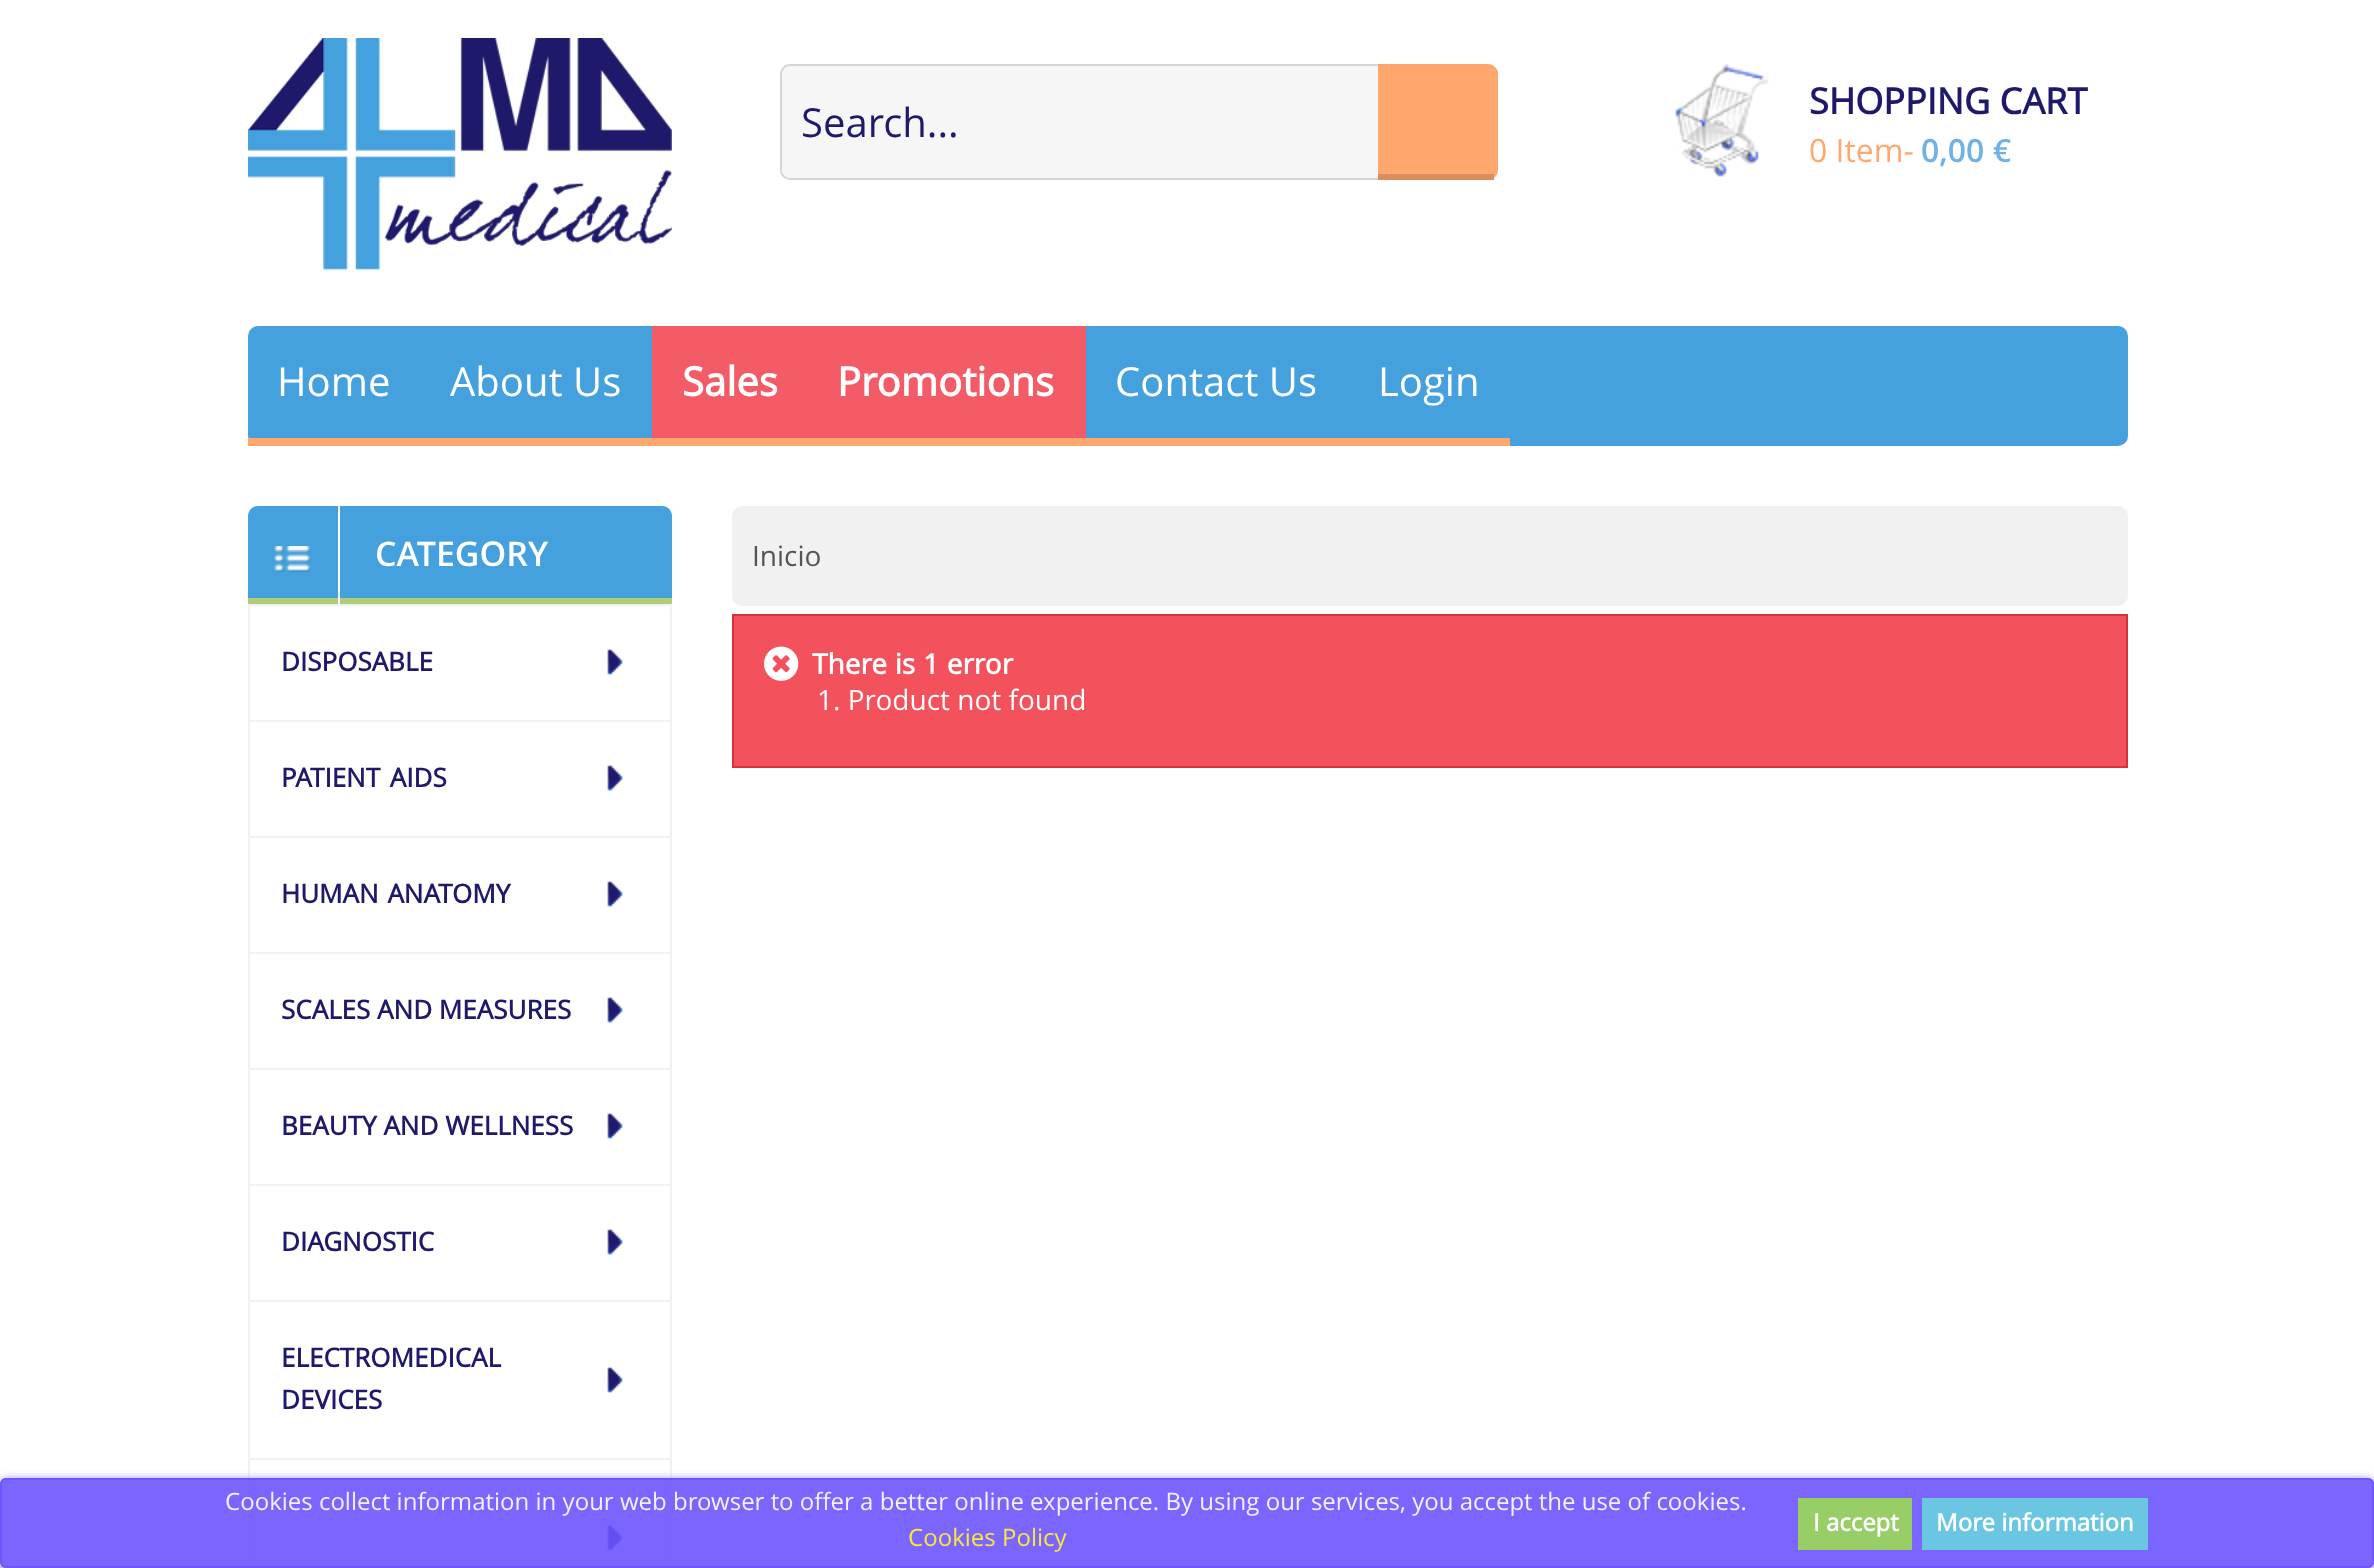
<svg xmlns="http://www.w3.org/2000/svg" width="2374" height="1568">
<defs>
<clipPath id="clip1"><path d="M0 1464h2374v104h-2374zm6 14h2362c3.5 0 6 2.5 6 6v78c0 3.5-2.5 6-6 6h-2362c-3.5 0-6-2.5-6-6v-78c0-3.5 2.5-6 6-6z" clip-rule="evenodd"/></clipPath>
</defs>
<rect width="100%" height="100%" fill="#fff"/>
<image x="248" y="38" width="424" height="232" href="media/1.png"/>
<path d="M790 65h589v114h-589c-5 0-9-4-9-9v-96c0-5 4-9 9-9z" fill="#f6f6f6" stroke="#d6d4d4" stroke-width="2"/>
<text x="801" y="137" style="font-family:Open Sans;font-size:40px;fill:#1e196a">Search...</text>
<path d="M1378 64h110c5.5 0 10 4.5 10 10v96c0 5.5-4.5 10-10 10h-110z" fill="#ffa76d"/>
<rect x="1378" y="174" width="116" height="6" fill="#d98e5d"/>
<image x="1675" y="64" width="94" height="113" href="media/2.png"/>
<text x="1809" y="114" style="font-family:Open Sans;font-size:36px;font-weight:bold;fill:#1e196a">SHOPPING CART</text>
<text x="1809" y="162" style="font-family:Open Sans;font-size:32px;fill:#ffa76d">0 Item-</text>
<text x="1921" y="162" style="font-family:Open Sans;font-size:32px;font-weight:600;fill:#71b2e4">0,00 €</text>
<path d="M248 604h424v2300c0 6-4 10-10 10h-404c-6 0-10-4-10-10zm2 0h420v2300c0 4-4 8-8 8h-404c-4 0-8-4-8-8z" fill="#f1f1f1" fill-rule="evenodd"/>
<image x="607" y="1525" width="16" height="26" href="media/4.png"/>
<g clip-path="url(#clip1)">
<rect y="1480" width="2374" height="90" rx="6" fill="#6b54ffe6" filter="blur(5px)"/>
</g>
<rect y="1478" width="2374" height="90" rx="6" fill="#6b54ffe6"/>
<rect x="1" y="1479" width="2372" height="88" rx="5" fill="none" stroke="#6b54ffe6" stroke-width="2"/>
<text x="225" y="1510" style="font-family:Open Sans;font-size:24px;fill:#f2f0ff">Cookies collect information in your web browser to offer a better online experience. By using our services, you accept the use of cookies.</text>
<text x="908" y="1546" style="font-family:Open Sans;font-size:24px;fill:#fbe63e">Cookies Policy</text>
<rect x="1798" y="1498" width="114" height="52" fill="#97ce65"/>
<text x="1813" y="1531" style="font-family:Open Sans;font-size:24px;font-weight:bold;fill:#fff">I accept</text>
<rect x="1922" y="1498" width="226" height="52" fill="#6bc6e1"/>
<text x="1936" y="1531" style="font-family:Open Sans;font-size:24px;font-weight:bold;fill:#fff">More information</text>
<rect x="248" y="326" width="1880" height="120" rx="10" fill="#45a1dd"/>
<rect x="248" y="438" width="1262" height="8" fill="#ffa76d"/>
<text x="277" y="396" style="font-family:Open Sans;font-size:40px;fill:#fff">Home</text>
<text x="450" y="396" style="font-family:Open Sans;font-size:40px;fill:#fff">About Us</text>
<rect x="652" y="326" width="434" height="112" fill="#f35b66"/>
<text x="682" y="396" style="font-family:Open Sans;font-size:40px;font-weight:bold;fill:#fff">Sales</text>
<text x="837" y="396" style="font-family:Open Sans;font-size:40px;font-weight:bold;fill:#fff">Promotions</text>
<text x="1115" y="396" style="font-family:Open Sans;font-size:40px;fill:#fff">Contact Us</text>
<text x="1378" y="396" style="font-family:Open Sans;font-size:40px;fill:#fff">Login</text>
<path d="M258 506h404c5.5 0 10 4.5 10 10v88h-424v-88c0-5.5 4.5-10 10-10z" fill="#45a1dd"/>
<image x="274" y="546" width="36" height="26" href="media/3.png"/>
<rect x="248" y="598" width="424" height="6" fill="#b1cb79"/>
<rect x="338" y="506" width="2" height="98" fill="#fff"/>
<text x="375" y="566" style="font-family:Open Sans;font-size:34px;font-weight:600;fill:#fff">CATEGORY</text>
<image x="607" y="649" width="16" height="26" href="media/4.png"/>
<rect x="250" y="604" width="420" height="2" fill="#f1f1f1"/>
<text x="281" y="671" style="font-family:Open Sans;font-size:26px;font-weight:bold;fill:#1e196a">DISPOSABLE</text>
<image x="607" y="765" width="16" height="26" href="media/4.png"/>
<rect x="250" y="720" width="420" height="2" fill="#f1f1f1"/>
<text x="281" y="787" word-spacing="3" style="font-family:Open Sans;font-size:26px;font-weight:bold;fill:#1e196a">PATIENT AIDS</text>
<image x="607" y="881" width="16" height="26" href="media/4.png"/>
<rect x="250" y="836" width="420" height="2" fill="#f1f1f1"/>
<text x="281" y="903" word-spacing="2" style="font-family:Open Sans;font-size:26px;font-weight:bold;fill:#1e196a">HUMAN ANATOMY</text>
<image x="607" y="997" width="16" height="26" href="media/4.png"/>
<rect x="250" y="952" width="420" height="2" fill="#f1f1f1"/>
<text x="281" y="1019" style="font-family:Open Sans;font-size:26px;font-weight:bold;fill:#1e196a">SCALES AND MEASURES</text>
<image x="607" y="1113" width="16" height="26" href="media/4.png"/>
<rect x="250" y="1068" width="420" height="2" fill="#f1f1f1"/>
<text x="281" y="1135" style="font-family:Open Sans;font-size:26px;font-weight:bold;fill:#1e196a">BEAUTY AND WELLNESS</text>
<image x="607" y="1229" width="16" height="26" href="media/4.png"/>
<rect x="250" y="1184" width="420" height="2" fill="#f1f1f1"/>
<text x="281" y="1251" style="font-family:Open Sans;font-size:26px;font-weight:bold;fill:#1e196a">DIAGNOSTIC</text>
<image x="607" y="1367" width="16" height="26" href="media/4.png"/>
<rect x="250" y="1300" width="420" height="2" fill="#f1f1f1"/>
<text x="281" y="1367" style="font-family:Open Sans;font-size:26px;font-weight:bold;fill:#1e196a">ELECTROMEDICAL</text>
<text x="281" y="1409" style="font-family:Open Sans;font-size:26px;font-weight:bold;fill:#1e196a">DEVICES</text>
<rect x="250" y="1458" width="420" height="2" fill="#f1f1f1"/>
<rect x="732" y="506" width="1396" height="100" rx="10" fill="#f1f1f1"/>
<text x="752" y="566" style="font-family:Open Sans;font-size:28px;fill:#555">Inicio</text>
<rect x="733" y="615" width="1394" height="152" fill="#f3515c" stroke="#d4323d" stroke-width="2"/>
<image x="764" y="646" width="35" height="35" href="media/5.png"/>
<text x="812" y="674" word-spacing="0.5" style="font-family:Open Sans;font-size:28px;font-weight:bold;fill:#fff">There is 1 error</text>
<text x="817" y="710" style="font-family:Open Sans;font-size:28px;fill:#fff">1. Product not found</text>
</svg>
